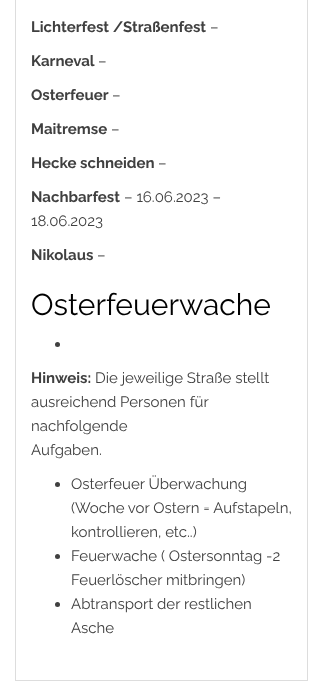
<svg xmlns="http://www.w3.org/2000/svg" width="323" height="693">
<rect width="100%" height="100%" fill="#fff"/>
<rect x="15.5" y="-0.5" width="292" height="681" fill="none" stroke="#ddd"/>
<text x="31" y="32" style="font-family:Raleway;font-size:15px;font-weight:bold;fill:#404040">Lichterfest /Straßenfest</text>
<text x="210" y="32" style="font-family:Raleway;font-size:15px;fill:#404040">–</text>
<text x="31" y="66" style="font-family:Raleway;font-size:15px;font-weight:bold;fill:#404040">Karneval</text>
<text x="98" y="66" style="font-family:Raleway;font-size:15px;fill:#404040">–</text>
<text x="31" y="100" style="font-family:Raleway;font-size:15px;font-weight:bold;fill:#404040">Osterfeuer</text>
<text x="112" y="100" style="font-family:Raleway;font-size:15px;fill:#404040">–</text>
<text x="31" y="134" style="font-family:Raleway;font-size:15px;font-weight:bold;fill:#404040">Maitremse</text>
<text x="111" y="134" style="font-family:Raleway;font-size:15px;fill:#404040">–</text>
<text x="31" y="168" style="font-family:Raleway;font-size:15px;font-weight:bold;fill:#404040">Hecke schneiden</text>
<text x="158" y="168" style="font-family:Raleway;font-size:15px;fill:#404040">–</text>
<text x="31" y="202" style="font-family:Raleway;font-size:15px;font-weight:bold;fill:#404040">Nachbarfest</text>
<text x="124" y="202" style="font-family:Raleway;font-size:15px;fill:#404040">– 16.06.2023 –</text>
<text x="31" y="226" style="font-family:Raleway;font-size:15px;fill:#404040">18.06.2023</text>
<text x="31" y="260" style="font-family:Raleway;font-size:15px;font-weight:bold;fill:#404040">Nikolaus</text>
<text x="97" y="260" style="font-family:Raleway;font-size:15px;fill:#404040">–</text>
<text x="31" y="315" style="font-family:Raleway;font-size:30px;fill:#000">Osterfeuerwache</text>
<circle cx="57.5" cy="344.5" r="2.5" fill="#404040"/>
<text x="31" y="383" style="font-family:Raleway;font-size:15px;font-weight:bold;fill:#404040">Hinweis:</text>
<text x="95" y="383" style="font-family:Raleway;font-size:15px;fill:#404040">Die jeweilige Straße stellt</text>
<text x="31" y="407" style="font-family:Raleway;font-size:15px;fill:#404040">ausreichend Personen für</text>
<text x="31" y="431" style="font-family:Raleway;font-size:15px;fill:#404040">nachfolgende</text>
<text x="31" y="455" style="font-family:Raleway;font-size:15px;fill:#404040">Aufgaben.</text>
<circle cx="57.5" cy="484.5" r="2.5" fill="#404040"/>
<text x="71" y="489" style="font-family:Raleway;font-size:15px;fill:#404040">Osterfeuer Überwachung</text>
<text x="71" y="513" style="font-family:Raleway;font-size:15px;fill:#404040">(Woche vor Ostern = Aufstapeln,</text>
<text x="71" y="537" style="font-family:Raleway;font-size:15px;fill:#404040">kontrollieren, etc..)</text>
<circle cx="57.5" cy="556.5" r="2.5" fill="#404040"/>
<text x="71" y="561" style="font-family:Raleway;font-size:15px;fill:#404040">Feuerwache ( Ostersonntag -2</text>
<text x="71" y="585" style="font-family:Raleway;font-size:15px;fill:#404040">Feuerlöscher mitbringen)</text>
<circle cx="57.5" cy="604.5" r="2.5" fill="#404040"/>
<text x="71" y="609" style="font-family:Raleway;font-size:15px;fill:#404040">Abtransport der restlichen</text>
<text x="71" y="633" style="font-family:Raleway;font-size:15px;fill:#404040">Asche</text>
</svg>
